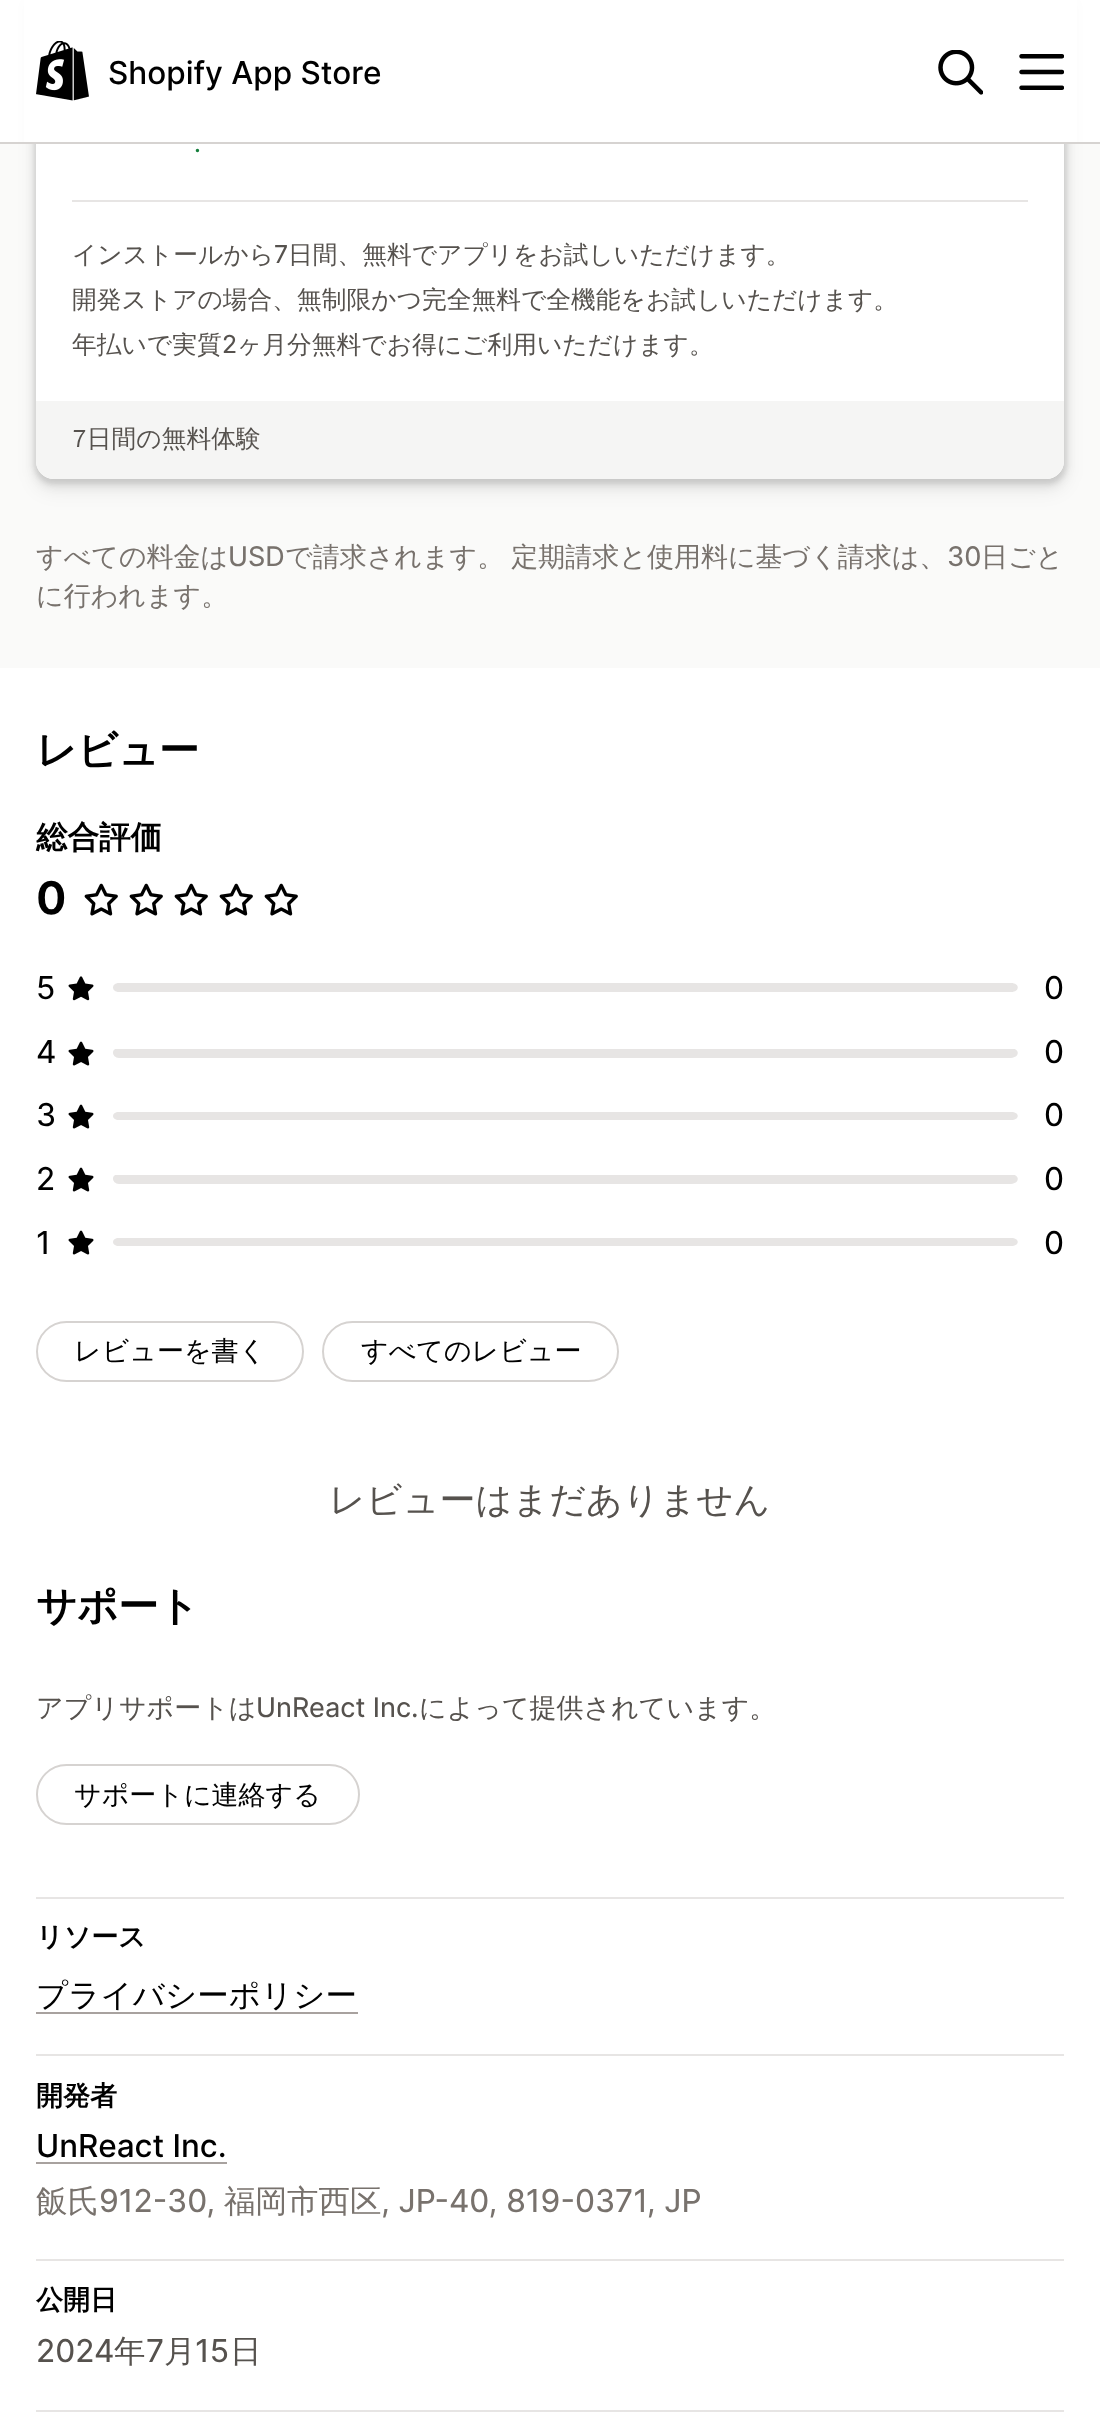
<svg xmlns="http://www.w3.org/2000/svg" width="1100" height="2425">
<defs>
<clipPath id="clip1"><rect x="113" y="1049" width="933" height="9"/></clipPath>
<clipPath id="clip2"><rect x="113" y="1175" width="933" height="9"/></clipPath>
</defs>
<rect width="100%" height="100%" fill="#fff"/>
<rect y="144" width="1100" height="524" fill="#fafaf9"/>
<rect x="34" y="-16" width="1033" height="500" rx="20" fill="#00000012" filter="blur(2px)"/>
<rect x="34" y="-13" width="1033" height="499" rx="20" fill="#00000012" filter="blur(4.5px)"/>
<rect x="34" y="-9" width="1033" height="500" rx="20" fill="#00000012" filter="blur(9px)"/>
<rect x="36" y="-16" width="1028" height="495" rx="18" fill="#fff"/>
<rect x="24" width="1053" height="142" fill="#fff"/>
<rect y="142" width="1100" height="2" fill="#d6d3d1"/>
<image x="36" y="41" width="53" height="60" href="media/1.png"/>
<text x="108" y="84" style="font-family:Inter;font-size:31.5px;font-weight:500;fill:#000">Shopify App Store</text>
<image x="938" y="50" width="45" height="45" href="media/2.png"/>
<image x="1019" y="54" width="45" height="36" href="media/3.png"/>
<text x="194" y="152" style="font-family:Inter;font-size:24.75px;fill:#157f3c">.</text>
<rect x="72" y="200" width="956" height="2" fill="#e7e5e4"/>
<text x="72" y="263" style="font-family:WenQuanYi Zen Hei;font-size:24.75px;font-weight:500;fill:#56524e">インストールから</text>
<text x="274" y="263" style="font-family:Inter;font-size:24.75px;fill:#56524e">7</text>
<text x="288" y="263" style="font-family:WenQuanYi Zen Hei;font-size:24.75px;font-weight:500;fill:#56524e">日間、無料でアプリをお試しいただけます。</text>
<text x="72" y="308" style="font-family:WenQuanYi Zen Hei;font-size:24.75px;font-weight:500;fill:#56524e">開発ストアの場合、無制限かつ完全無料で全機能をお試しいただけます。</text>
<text x="72" y="353" style="font-family:WenQuanYi Zen Hei;font-size:24.75px;font-weight:500;fill:#56524e">年払いで実質</text>
<text x="222" y="353" style="font-family:Inter;font-size:24.75px;fill:#56524e">2</text>
<text x="237" y="353" style="font-family:WenQuanYi Zen Hei;font-size:24.75px;font-weight:500;fill:#56524e">ヶ月分無料でお得にご利用いただけます。</text>
<path d="M36 401h1028v60c0 10-8 18-18 18h-992c-10 0-18-8-18-18z" fill="#f5f5f4"/>
<text x="72" y="447" style="font-family:WenQuanYi Zen Hei;font-size:24.75px;font-weight:500;fill:#56524e">7日間の無料体験</text>
<text x="36" y="566" style="font-family:WenQuanYi Zen Hei;font-size:27px;font-weight:500;fill:#78726d">すべての料金は</text>
<text x="228" y="566" style="font-family:Inter;font-size:27px;fill:#78726d">USD</text>
<text x="285" y="566" word-spacing="-1" style="font-family:WenQuanYi Zen Hei;font-size:27px;font-weight:500;fill:#78726d">で請求されます。 定期請求と使用料に基づく請求は、</text>
<text x="947" y="566" style="font-family:Inter;font-size:27px;fill:#78726d">30</text>
<text x="981" y="566" style="font-family:WenQuanYi Zen Hei;font-size:27px;font-weight:500;fill:#78726d">日ごと</text>
<text x="36" y="605" style="font-family:WenQuanYi Zen Hei;font-size:27px;font-weight:500;fill:#78726d">に行われます。</text>
<text x="36" y="764" style="font-family:WenQuanYi Zen Hei;font-size:40.5px;font-weight:bold;letter-spacing:-0.5px;fill:#000">レビュー</text>
<text x="36" y="848" style="font-family:WenQuanYi Zen Hei;font-size:31.5px;font-weight:bold;fill:#000">総合評価</text>
<text x="36" y="914" style="font-family:Inter;font-size:45px;font-weight:600;fill:#000">0</text>
<image x="84" y="883" width="34" height="33" href="media/4.png"/>
<image x="129" y="883" width="34" height="33" href="media/4.png"/>
<image x="174" y="883" width="34" height="33" href="media/4.png"/>
<image x="219" y="883" width="34" height="33" href="media/4.png"/>
<image x="264" y="883" width="34" height="33" href="media/4.png"/>
<text x="36" y="999" style="font-family:Inter;font-size:31.5px;fill:#000">5</text>
<image x="68" y="976" width="26" height="25" href="media/5.png"/>
<path d="M119 983h892c9 0 9 9 0 9h-892c-8 0-8-9 0-9z" fill="#e7e5e4"/>
<text x="1044" y="999" style="font-family:Inter;font-size:31.5px;fill:#000">0</text>
<text x="36" y="1063" style="font-family:Inter;font-size:31.5px;fill:#000">4</text>
<image x="68" y="1041" width="26" height="25" href="media/6.png"/>
<g clip-path="url(#clip1)">
<path d="M119 1048h892c9 1 9 9 0 10h-892c-8-1-8-10 0-10z" fill="#e7e5e4"/>
</g>
<text x="1044" y="1063" style="font-family:Inter;font-size:31.5px;fill:#000">0</text>
<text x="36" y="1126" style="font-family:Inter;font-size:31.5px;fill:#000">3</text>
<image x="68" y="1104" width="26" height="25" href="media/6.png"/>
<path d="M119 1112h892c9 0 9 8 0 8h-892c-8 0-8-8 0-8z" fill="#e7e5e4"/>
<text x="1044" y="1126" style="font-family:Inter;font-size:31.5px;fill:#000">0</text>
<text x="36" y="1190" style="font-family:Inter;font-size:31.5px;fill:#000">2</text>
<image x="68" y="1167" width="26" height="25" href="media/6.png"/>
<g clip-path="url(#clip2)">
<path d="M119 1174h892c9 1 9 9 0 10h-892c-8-1-8-10 0-10z" fill="#e7e5e4"/>
</g>
<text x="1044" y="1190" style="font-family:Inter;font-size:31.5px;fill:#000">0</text>
<text x="36" y="1254" style="font-family:Inter;font-size:31.5px;fill:#000">1</text>
<image x="68" y="1230" width="26" height="25" href="media/6.png"/>
<path d="M119 1238h892c9 0 9 8 0 8h-892c-8 0-8-8 0-8z" fill="#e7e5e4"/>
<text x="1044" y="1254" style="font-family:Inter;font-size:31.5px;fill:#000">0</text>
<rect x="37" y="1322" width="266" height="59" rx="29.5" fill="none" stroke="#d6d3d1" stroke-width="2"/>
<text x="74" y="1360" style="font-family:WenQuanYi Zen Hei;font-size:27px;font-weight:500;fill:#000">レビューを書く</text>
<rect x="323" y="1322" width="295" height="59" rx="29.5" fill="none" stroke="#d6d3d1" stroke-width="2"/>
<text x="361" y="1360" style="font-family:WenQuanYi Zen Hei;font-size:27px;font-weight:500;fill:#000">すべてのレビュー</text>
<text x="329" y="1512" style="font-family:WenQuanYi Zen Hei;font-size:36px;font-weight:500;fill:#56524e">レビューはまだありません</text>
<text x="36" y="1620" style="font-family:WenQuanYi Zen Hei;font-size:40.5px;font-weight:bold;letter-spacing:-0.5px;fill:#000">サポート</text>
<text x="36" y="1717" style="font-family:WenQuanYi Zen Hei;font-size:27px;font-weight:500;fill:#56524e">アプリサポートは</text>
<text x="256" y="1717" style="font-family:Inter;font-size:27px;fill:#56524e">UnReact Inc.</text>
<text x="419" y="1717" style="font-family:WenQuanYi Zen Hei;font-size:27px;font-weight:500;fill:#56524e">によって提供されています。</text>
<rect x="37" y="1765" width="322" height="59" rx="29.5" fill="none" stroke="#d6d3d1" stroke-width="2"/>
<text x="74" y="1804" style="font-family:WenQuanYi Zen Hei;font-size:27px;font-weight:500;fill:#000">サポートに連絡する</text>
<rect x="36" y="1897" width="1028" height="2" fill="#e7e5e4"/>
<text x="36" y="1946" style="font-family:WenQuanYi Zen Hei;font-size:27px;font-weight:bold;fill:#000">リソース</text>
<text x="36" y="2006" style="font-family:WenQuanYi Zen Hei;font-size:31.5px;font-weight:500;fill:#000">プライバシーポリシー</text>
<rect x="36" y="2012" width="322" height="2" fill="#a8a29f"/>
<rect x="36" y="2054" width="1028" height="2" fill="#e7e5e4"/>
<text x="36" y="2105" style="font-family:WenQuanYi Zen Hei;font-size:27px;font-weight:bold;fill:#000">開発者</text>
<text x="36" y="2157" style="font-family:Inter;font-size:31.5px;font-weight:500;fill:#000">UnReact Inc.</text>
<rect x="36" y="2162" width="191" height="2" fill="#a8a29f"/>
<text x="36" y="2212" style="font-family:WenQuanYi Zen Hei;font-size:31.5px;font-weight:500;fill:#78726d">飯氏</text>
<text x="99" y="2212" style="font-family:Inter;font-size:31.5px;fill:#78726d">912-30,</text>
<text x="224" y="2212" style="font-family:WenQuanYi Zen Hei;font-size:31.5px;font-weight:500;fill:#78726d">福岡市西区</text>
<text x="381" y="2212" style="font-family:Inter;font-size:31.5px;fill:#78726d">, JP-40, 819-0371, JP</text>
<rect x="36" y="2259" width="1028" height="2" fill="#e7e5e4"/>
<text x="36" y="2309" style="font-family:WenQuanYi Zen Hei;font-size:27px;font-weight:bold;fill:#000">公開日</text>
<text x="36" y="2362" style="font-family:Inter;font-size:31.5px;fill:#56524e">2024</text>
<text x="114" y="2362" style="font-family:WenQuanYi Zen Hei;font-size:31.5px;font-weight:500;fill:#56524e">年</text>
<text x="146" y="2362" style="font-family:Inter;font-size:31.5px;fill:#56524e">7</text>
<text x="164" y="2362" style="font-family:WenQuanYi Zen Hei;font-size:31.5px;font-weight:500;fill:#56524e">月</text>
<text x="195" y="2362" style="font-family:Inter;font-size:31.5px;fill:#56524e">15</text>
<text x="230" y="2362" style="font-family:WenQuanYi Zen Hei;font-size:31.5px;font-weight:500;fill:#56524e">日</text>
<rect x="36" y="2410" width="1028" height="2" fill="#e7e5e4"/>
</svg>
